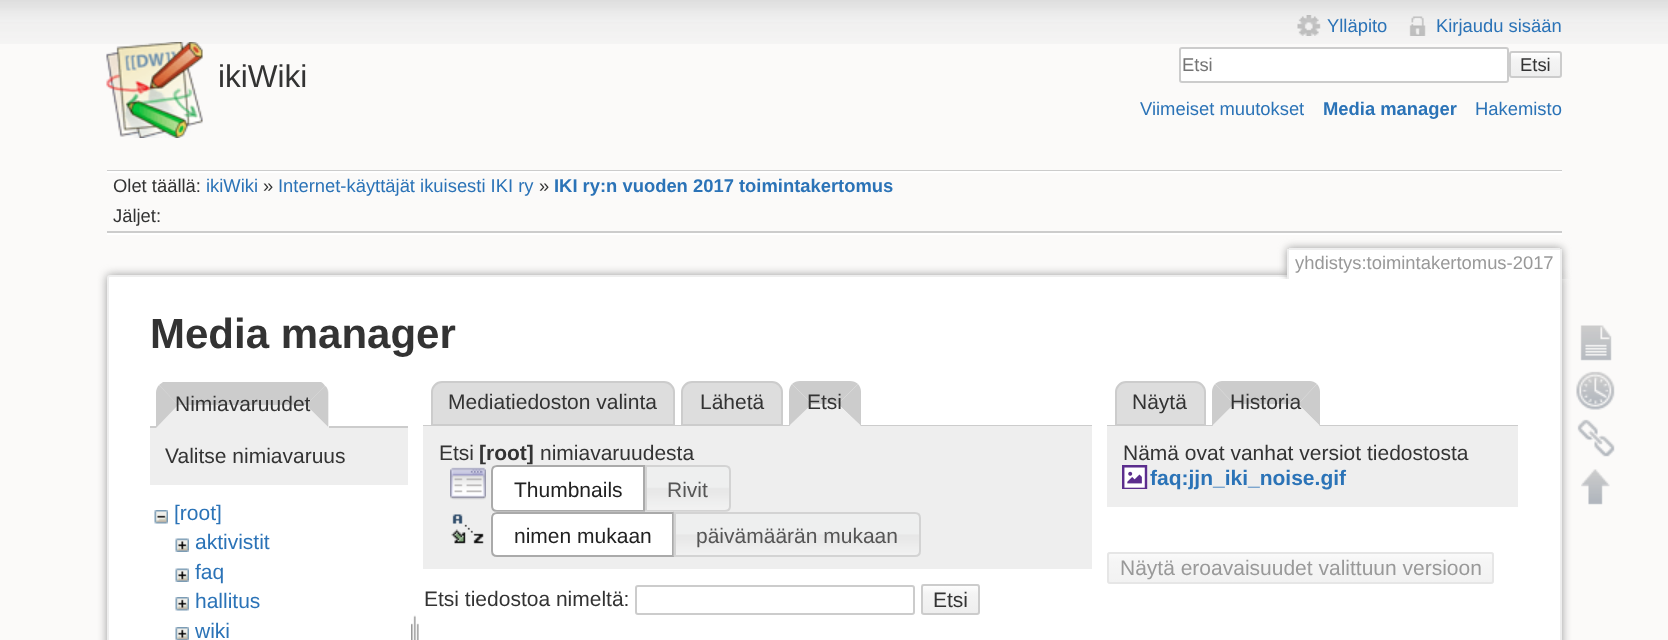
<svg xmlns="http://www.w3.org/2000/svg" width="1668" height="640">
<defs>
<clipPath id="clip1"><rect x="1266" y="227" width="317" height="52"/></clipPath>
</defs>
<rect width="100%" height="100%" fill="#fbfaf9"/>
<image x="0" y="0" width="1668" height="44" href="media/1.png"/>
<image x="106" y="42" width="97" height="96" href="media/2.png"/>
<text x="218" y="87" style="font-family:Liberation Sans;font-size:31.5px;fill:#333">ikiWiki</text>
<image x="1297" y="15" width="24" height="21" href="media/3.png"/>
<text x="1327" y="32" style="font-family:Liberation Sans;font-size:18.4px;fill:#2b73b7">Ylläpito</text>
<image x="1409" y="16" width="17" height="20" href="media/4.png"/>
<text x="1436" y="32" style="font-family:Liberation Sans;font-size:18.4px;fill:#2b73b7">Kirjaudu sisään</text>
<rect x="1180" y="48" width="328" height="34" rx="2" fill="#fff" stroke="#ccc" stroke-width="2"/>
<text x="1182" y="71" style="font-family:Liberation Sans;font-size:18.4px;fill:#757575">Etsi</text>
<image x="1509" y="52" width="52" height="26" href="media/5.png"/>
<rect x="1510" y="52" width="51" height="25" rx="2" fill="none" stroke="#ccc" stroke-width="2"/>
<text x="1520" y="71" style="font-family:Liberation Sans;font-size:18.4px;fill:#333">Etsi</text>
<text x="1140" y="115" style="font-family:Liberation Sans;font-size:18.4px;fill:#2b73b7">Viimeiset muutokset</text>
<text x="1323" y="115" style="font-family:Liberation Sans;font-size:18.4px;font-weight:bold;fill:#2b73b7">Media manager</text>
<text x="1475" y="115" style="font-family:Liberation Sans;font-size:18.4px;fill:#2b73b7">Hakemisto</text>
<rect x="107" y="170" width="1455" height="1" fill="#ccc"/>
<rect x="107" y="233" width="1455" height="2" fill="#fff"/>
<rect x="107" y="171" width="1455" height="2" fill="#fff"/>
<text x="113" y="192" style="font-family:Liberation Sans;font-size:18.4px;fill:#333">Olet täällä:</text>
<text x="206" y="192" style="font-family:Liberation Sans;font-size:18.4px;fill:#2b73b7">ikiWiki</text>
<text x="263" y="192" style="font-family:Liberation Sans;font-size:18.4px;fill:#333">»</text>
<text x="278" y="192" style="font-family:Liberation Sans;font-size:18.4px;fill:#2b73b7">Internet-käyttäjät ikuisesti IKI ry</text>
<text x="539" y="192" style="font-family:Liberation Sans;font-size:18.4px;fill:#333">»</text>
<text x="554" y="192" style="font-family:Liberation Sans;font-size:18.4px;font-weight:bold;fill:#2b73b7">IKI ry:n vuoden 2017 toimintakertomus</text>
<rect x="107" y="231" width="1455" height="2" fill="#ccc"/>
<text x="113" y="222" style="font-family:Liberation Sans;font-size:18.4px;fill:#333">Jäljet:</text>
<rect x="107" y="275" width="1455" height="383" rx="3" fill="#999" filter="blur(5px)"/>
<rect x="108" y="276" width="1453" height="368" rx="2" fill="#fff" stroke="#eee" stroke-width="2"/>
<g clip-path="url(#clip1)">
<rect x="1287" y="248" width="275" height="31" rx="3" fill="#999" filter="blur(4.5px)"/>
</g>
<rect x="1289" y="250" width="271" height="29" fill="#fff"/>
<rect x="1289" y="248" width="271" height="2" fill="#eee"/>
<rect x="1560" y="249" width="2" height="30" fill="#eee"/>
<rect x="1287" y="249" width="2" height="30" fill="#eee"/>
<text x="1295" y="269" style="font-family:Liberation Sans;font-size:18.4px;fill:#999">yhdistys:toimintakertomus-2017</text>
<text x="150" y="348" style="font-family:Liberation Sans;font-size:42px;font-weight:bold;fill:#333">Media manager</text>
<rect x="150" y="426" width="258" height="2" fill="#ccc"/>
<path d="M167 383h151c6 0 11 5 11 11v34h-173v-34c0-6 5-11 11-11z" fill="#eee"/>
<path d="M321 382h-158l-4 3l19 20h128l19-19c-1-2-2-3-4-4z" fill="#ccc"/>
<path d="M325 386l-19 19l22 22v-34c0-3-1-6-3-7z" fill="#ccc"/>
<path d="M328 427l-22-22h-128l-22 23h172z" fill="#eee"/>
<path d="M156 428l22-23l-19-20c-2 2-3 5-3 8z" fill="#ccc"/>
<text x="175" y="411" style="font-family:Liberation Sans;font-size:21px;fill:#333">Nimiavaruudet</text>
<rect x="150" y="428" width="258" height="57" fill="#eee"/>
<text x="165" y="463" style="font-family:Liberation Sans;font-size:21px;fill:#333">Valitse nimiavaruus</text>
<image x="154" y="510" width="14" height="14" href="media/6.png"/>
<text x="174" y="520" style="font-family:Liberation Sans;font-size:21px;fill:#2b73b7">[root]</text>
<image x="175" y="538" width="14" height="14" href="media/7.png"/>
<text x="195" y="549" style="font-family:Liberation Sans;font-size:21px;fill:#2b73b7">aktivistit</text>
<image x="175" y="568" width="14" height="14" href="media/7.png"/>
<text x="195" y="579" style="font-family:Liberation Sans;font-size:21px;fill:#2b73b7">faq</text>
<image x="175" y="597" width="14" height="14" href="media/8.png"/>
<text x="195" y="608" style="font-family:Liberation Sans;font-size:21px;fill:#2b73b7">hallitus</text>
<image x="175" y="627" width="14" height="13" href="media/9.png"/>
<text x="195" y="638" style="font-family:Liberation Sans;font-size:21px;fill:#2b73b7">wiki</text>
<image x="411" y="615" width="8" height="25" href="media/10.png"/>
<path d="M442 382h222c5.5 0 10 4.5 10 10v33h-242v-33c0-5.5 4.5-10 10-10z" fill="#ddd" stroke="#ccc" stroke-width="2"/>
<text x="448" y="409" style="font-family:Liberation Sans;font-size:21px;fill:#333">Mediatiedoston valinta</text>
<path d="M692 382h80c5.5 0 10 4.5 10 10v33h-100v-33c0-5.5 4.5-10 10-10z" fill="#ddd" stroke="#ccc" stroke-width="2"/>
<text x="700" y="409" style="font-family:Liberation Sans;font-size:21px;fill:#333">Lähetä</text>
<path d="M800 381h50c3 0 6 1 8 3l-20 20h-26l-20-20c2-2 5-3 8-3z" fill="#ccc"/>
<rect x="423" y="425" width="669" height="1" fill="#ccc"/>
<path d="M858 384l-20 20l23 22v-34c0-3-1-6-3-8z" fill="#ccc"/>
<path d="M861 426l-23-22h-26l-23 22z" fill="#eee"/>
<path d="M789 426v-34c0-3 1-6 3-8l20 20z" fill="#ccc"/>
<text x="807" y="409" style="font-family:Liberation Sans;font-size:21px;fill:#333">Etsi</text>
<rect x="423" y="426" width="669" height="143" fill="#eee"/>
<text x="439" y="460" style="font-family:Liberation Sans;font-size:21px;fill:#333">Etsi</text>
<text x="479" y="460" style="font-family:Liberation Sans;font-size:21px;font-weight:bold;fill:#333">[root]</text>
<text x="540" y="460" style="font-family:Liberation Sans;font-size:21px;fill:#333">nimiavaruudesta</text>
<image x="450" y="467" width="36" height="33" href="media/11.png"/>
<path d="M497 465h148v47h-148c-3.5 0-6-2.5-6-6v-35c0-3.5 2.5-6 6-6z" fill="#fff"/>
<image x="490" y="465" width="5" height="44" href="media/12.png"/>
<path d="M497 466h147v45h-147c-3 0-5-2-5-5v-35c0-3 2-5 5-5z" fill="none" stroke="#aaa" stroke-width="2"/>
<text x="514" y="497" style="font-family:Liberation Sans;font-size:21px;fill:#212121">Thumbnails</text>
<image x="647" y="465" width="83" height="46" href="media/13.png"/>
<path d="M646 466h79c3 0 5 2 5 5v35c0 3-2 5-5 5h-79z" fill="none" stroke="#d3d3d3" stroke-width="2"/>
<text x="667" y="497" style="font-family:Liberation Sans;font-size:21px;fill:#555">Rivit</text>
<image x="451" y="514" width="33" height="30" href="media/14.png"/>
<path d="M497 512h177v45h-177c-3.5 0-6-2.5-6-6v-33c0-3.5 2.5-6 6-6z" fill="#fff"/>
<image x="490" y="511" width="183" height="43" href="media/15.png"/>
<path d="M497 513h176v43h-176c-3 0-5-2-5-5v-33c0-3 2-5 5-5z" fill="none" stroke="#aaa" stroke-width="2"/>
<text x="514" y="543" style="font-family:Liberation Sans;font-size:21px;fill:#212121">nimen mukaan</text>
<image x="673" y="511" width="248" height="46" href="media/16.png"/>
<path d="M675 513h240c3 0 5 2 5 5v33c0 3-2 5-5 5h-240z" fill="none" stroke="#d3d3d3" stroke-width="2"/>
<text x="696" y="543" style="font-family:Liberation Sans;font-size:21px;fill:#555">päivämäärän mukaan</text>
<text x="424" y="606" style="font-family:Liberation Sans;font-size:21px;fill:#333">Etsi tiedostoa nimeltä:</text>
<rect x="636" y="586" width="278" height="28" rx="2" fill="none" stroke="#ccc" stroke-width="2"/>
<image x="921" y="584" width="58" height="31" href="media/17.png"/>
<rect x="922" y="585" width="57" height="29" rx="2" fill="none" stroke="#ccc" stroke-width="2"/>
<text x="933" y="607" style="font-family:Liberation Sans;font-size:21px;fill:#333">Etsi</text>
<path d="M1126 382h69c5.5 0 10 4.5 10 10v33h-89v-33c0-5.5 4.5-10 10-10z" fill="#ddd" stroke="#ccc" stroke-width="2"/>
<text x="1132" y="409" style="font-family:Liberation Sans;font-size:21px;fill:#333">Näytä</text>
<path d="M1222 381h88c2 0 5 1 7 3l-19 20h-64l-19-20c2-2 5-3 7-3z" fill="#ccc"/>
<rect x="1107" y="425" width="411" height="1" fill="#ccc"/>
<path d="M1317 384l-19 20l22 22v-34c0-3-1-6-3-8z" fill="#ccc"/>
<path d="M1320 426l-22-22h-64l-22 22z" fill="#eee"/>
<path d="M1212 426v-34c0-3 1-6 3-8l19 20z" fill="#ccc"/>
<text x="1230" y="409" style="font-family:Liberation Sans;font-size:21px;fill:#333">Historia</text>
<rect x="1107" y="426" width="411" height="81" fill="#eee"/>
<text x="1123" y="460" style="font-family:Liberation Sans;font-size:21px;fill:#333">Nämä ovat vanhat versiot tiedostosta</text>
<image x="1122" y="465" width="26" height="24" href="media/18.png"/>
<text x="1150" y="485" style="font-family:Liberation Sans;font-size:21px;font-weight:bold;fill:#2b73b7">faq:jjn_iki_noise.gif</text>
<rect x="1107" y="552" width="387" height="32" rx="3" fill="#f7f7f7"/>
<image x="1107" y="552" width="387" height="31" href="media/19.png"/>
<rect x="1108" y="553" width="385" height="30" rx="2" fill="none" stroke="#e6e6e6" stroke-width="2"/>
<text x="1120" y="575" style="font-family:Liberation Sans;font-size:21px;fill:#999">Näytä eroavaisuudet valittuun versioon</text>
<image x="1580" y="325" width="32" height="36" href="media/20.png"/>
<image x="1576" y="371" width="39" height="39" href="media/21.png"/>
<image x="1577" y="419" width="38" height="38" href="media/22.png"/>
<image x="1581" y="469" width="29" height="36" href="media/23.png"/>
</svg>
